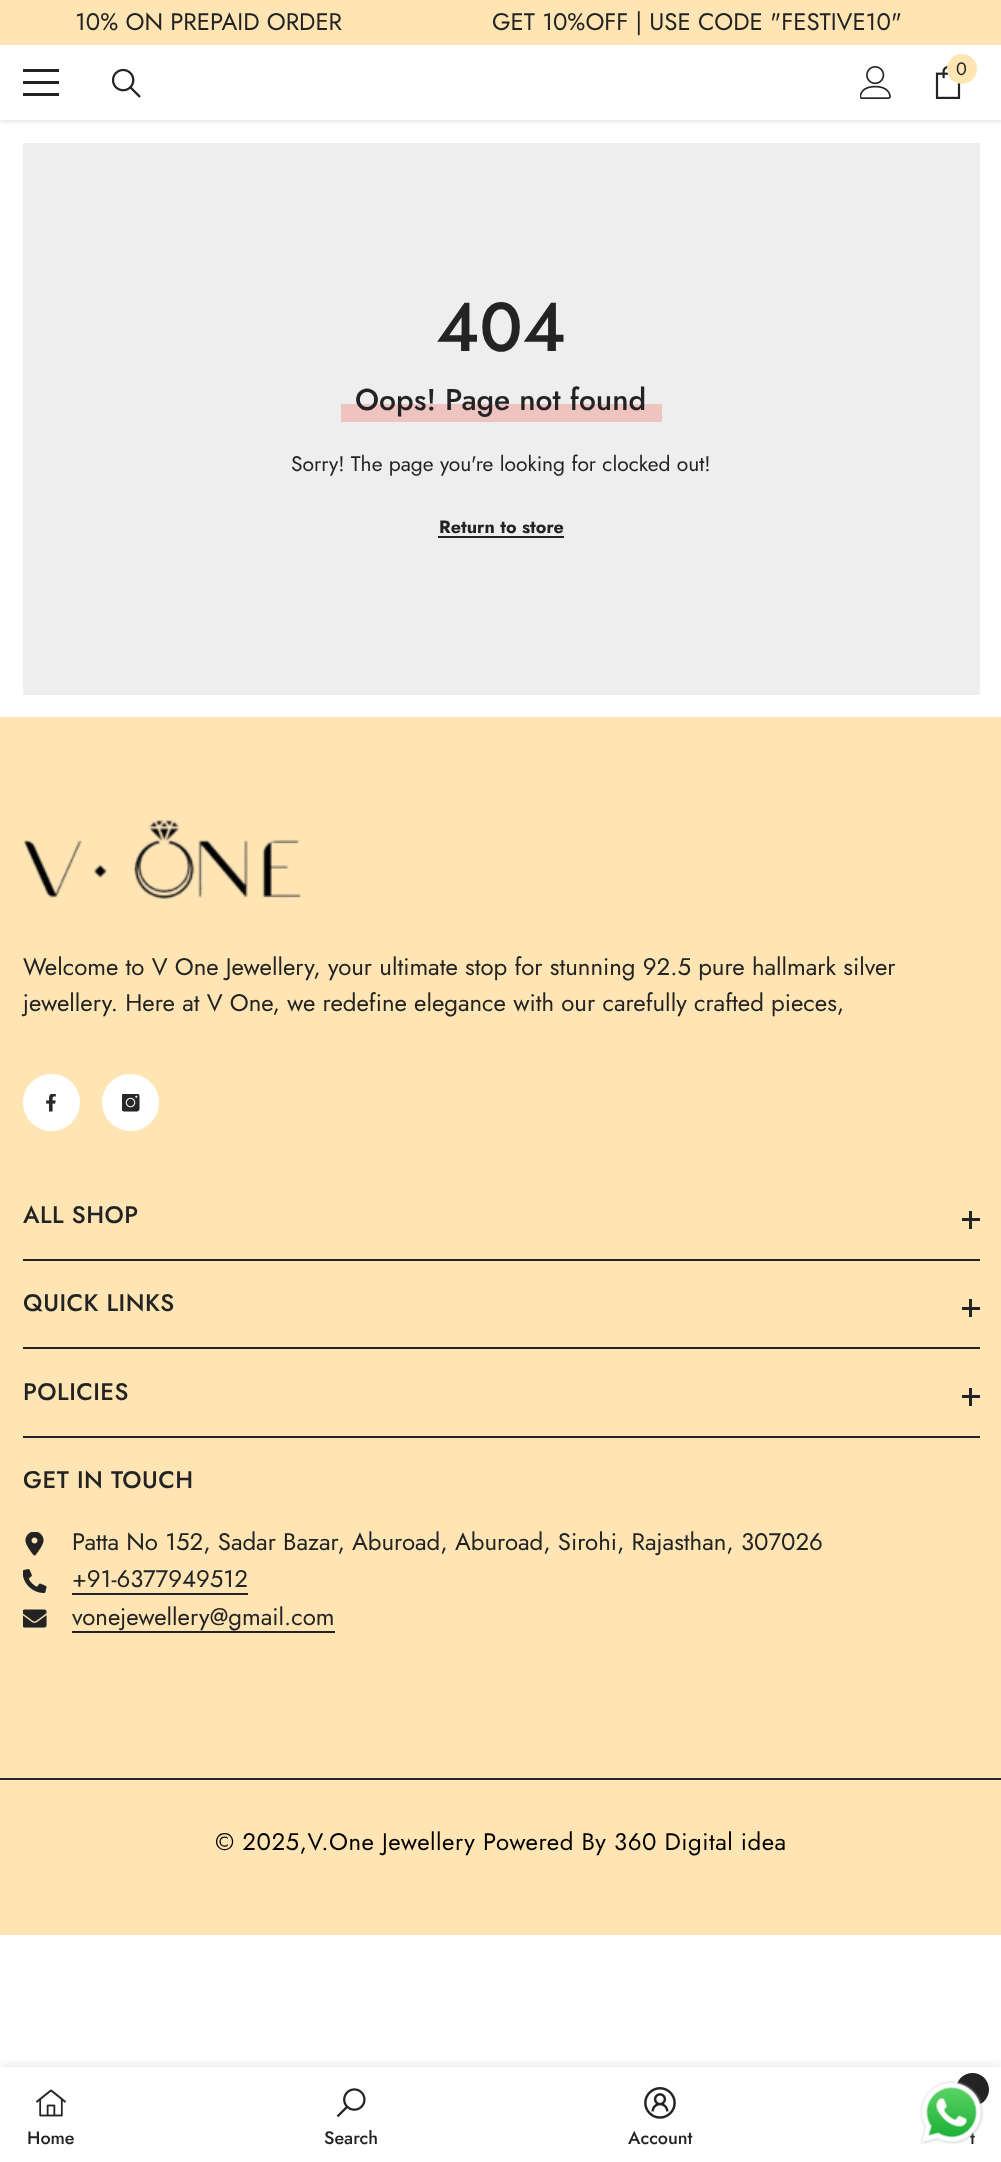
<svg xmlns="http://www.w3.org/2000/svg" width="1001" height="2162">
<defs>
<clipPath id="clip1"><rect x="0" y="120" width="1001" height="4"/></clipPath>
<clipPath id="clip2"><rect x="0" y="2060" width="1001" height="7"/></clipPath>
</defs>
<rect width="100%" height="100%" fill="#fff"/>
<rect width="1001" height="45" fill="#ffe5b4"/>
<text x="75" y="30" style="font-family:Jost;font-size:24px;fill:#232323">10% ON PREPAID ORDER</text>
<text x="492" y="30" style="font-family:Jost;font-size:24px;fill:#232323">GET 10%OFF | USE CODE "FESTIVE10"</text>
<g clip-path="url(#clip1)">
<rect y="47" width="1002" height="75" fill="#0000001a" filter="blur(2px)"/>
</g>
<rect x="23" y="81" width="36" height="3" fill="#232323"/>
<rect x="23" y="69" width="36" height="3" fill="#232323"/>
<rect x="23" y="93" width="36" height="3" fill="#232323"/>
<image x="111" y="68" width="30" height="30" href="media/1.png"/>
<image x="860" y="66" width="31" height="33" href="media/2.png"/>
<image x="935" y="66" width="26" height="33" href="media/3.png"/>
<circle cx="962" cy="69" r="15" fill="#ffe5b4"/>
<text x="956" y="75" style="font-family:Jost;font-size:18px;fill:#232323">0</text>
<rect x="23" y="143" width="957" height="552" fill="#eee"/>
<text x="436" y="351" style="font-family:Jost;font-size:69px;font-weight:500;fill:#232323">404</text>
<rect x="341" y="404" width="321" height="18" fill="#efc3c0"/>
<text x="355" y="410" style="font-family:Jost;font-size:30px;font-weight:500;fill:#232323">Oops! Page not found</text>
<text x="291" y="471" style="font-family:Jost;font-size:21px;fill:#232323">Sorry! The page you're looking for clocked out!</text>
<text x="439" y="533" style="font-family:Jost;font-size:18px;font-weight:bold;fill:#232323">Return to store</text>
<rect x="438" y="536" width="126" height="2" fill="#232323"/>
<rect y="717" width="1001" height="1061" fill="#ffe5b4"/>
<image x="23" y="820" width="279" height="80" href="media/4.png"/>
<text x="23" y="975" style="font-family:Jost;font-size:24px;fill:#232323">Welcome to V One Jewellery, your ultimate stop for stunning 92.5 pure hallmark silver</text>
<text x="23" y="1011" style="font-family:Jost;font-size:24px;fill:#232323">jewellery. Here at V One, we redefine elegance with our carefully crafted pieces,</text>
<circle cx="51.5" cy="1102.5" r="27.5" fill="#fff" stroke="#fff" stroke-width="2"/>
<image x="46" y="1094" width="10" height="18" href="media/5.png"/>
<circle cx="130.5" cy="1102.5" r="27.5" fill="#fff" stroke="#fff" stroke-width="2"/>
<image x="122" y="1094" width="18" height="18" href="media/6.png"/>
<rect x="23" y="1259" width="957" height="2" fill="#232323"/>
<text x="23" y="1223" style="font-family:Jost;font-size:24px;font-weight:500;letter-spacing:0.48px;fill:#232323">ALL SHOP</text>
<rect x="969" y="1211" width="3" height="18" fill="#232323"/>
<rect x="962" y="1218" width="18" height="3" fill="#232323"/>
<rect x="23" y="1347" width="957" height="2" fill="#232323"/>
<text x="23" y="1311" style="font-family:Jost;font-size:24px;font-weight:500;letter-spacing:0.48px;fill:#232323">QUICK LINKS</text>
<rect x="969" y="1299" width="3" height="18" fill="#232323"/>
<rect x="962" y="1307" width="18" height="3" fill="#232323"/>
<rect x="23" y="1436" width="957" height="2" fill="#232323"/>
<text x="23" y="1400" style="font-family:Jost;font-size:24px;font-weight:500;letter-spacing:0.48px;fill:#232323">POLICIES</text>
<rect x="969" y="1388" width="3" height="18" fill="#232323"/>
<rect x="962" y="1395" width="18" height="3" fill="#232323"/>
<text x="23" y="1488" style="font-family:Jost;font-size:24px;font-weight:500;letter-spacing:0.48px;fill:#232323">GET IN TOUCH</text>
<image x="25" y="1532" width="19" height="24" href="media/7.png"/>
<text x="72" y="1550" style="font-family:Jost;font-size:24px;fill:#232323">Patta No 152, Sadar Bazar, Aburoad, Aburoad, Sirohi, Rajasthan, 307026</text>
<image x="23" y="1569" width="24" height="24" href="media/8.png"/>
<text x="72" y="1587" style="font-family:Jost;font-size:24px;fill:#232323">+91-6377949512</text>
<rect x="72" y="1593" width="176" height="2" fill="#232323"/>
<image x="23" y="1609" width="24" height="19" href="media/9.png"/>
<text x="72" y="1625" style="font-family:Jost;font-size:24px;fill:#232323">vonejewellery@gmail.com</text>
<rect x="72" y="1631" width="263" height="2" fill="#232323"/>
<rect y="1780" width="1001" height="155" fill="#ffe5b4"/>
<rect y="1778" width="1001" height="2" fill="#282828"/>
<text x="215" y="1850" style="font-family:Jost;font-size:24px;letter-spacing:0.48px;fill:#000">© 2025,V.One Jewellery Powered By 360 Digital idea</text>
<g clip-path="url(#clip2)">
<rect y="2067" width="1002" height="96" fill="#0000001f" filter="blur(7px)"/>
</g>
<image x="36" y="2089" width="30" height="28" href="media/10.png"/>
<text x="27" y="2144" style="font-family:Jost;font-size:18px;font-weight:500;fill:#232323">Home</text>
<image x="336" y="2088" width="30" height="30" href="media/11.png"/>
<text x="324" y="2144" style="font-family:Jost;font-size:18px;font-weight:500;fill:#232323">Search</text>
<image x="644" y="2087" width="32" height="32" href="media/12.png"/>
<text x="628" y="2144" style="font-family:Jost;font-size:18px;font-weight:500;fill:#232323">Account</text>
<circle cx="972.5" cy="2089.5" r="16.5" fill="#232323"/>
<text x="970" y="2144" style="font-family:Jost;font-size:18px;font-weight:500;fill:#232323">t</text>
<image x="920" y="2081" width="64" height="64" href="media/13.png"/>
</svg>
